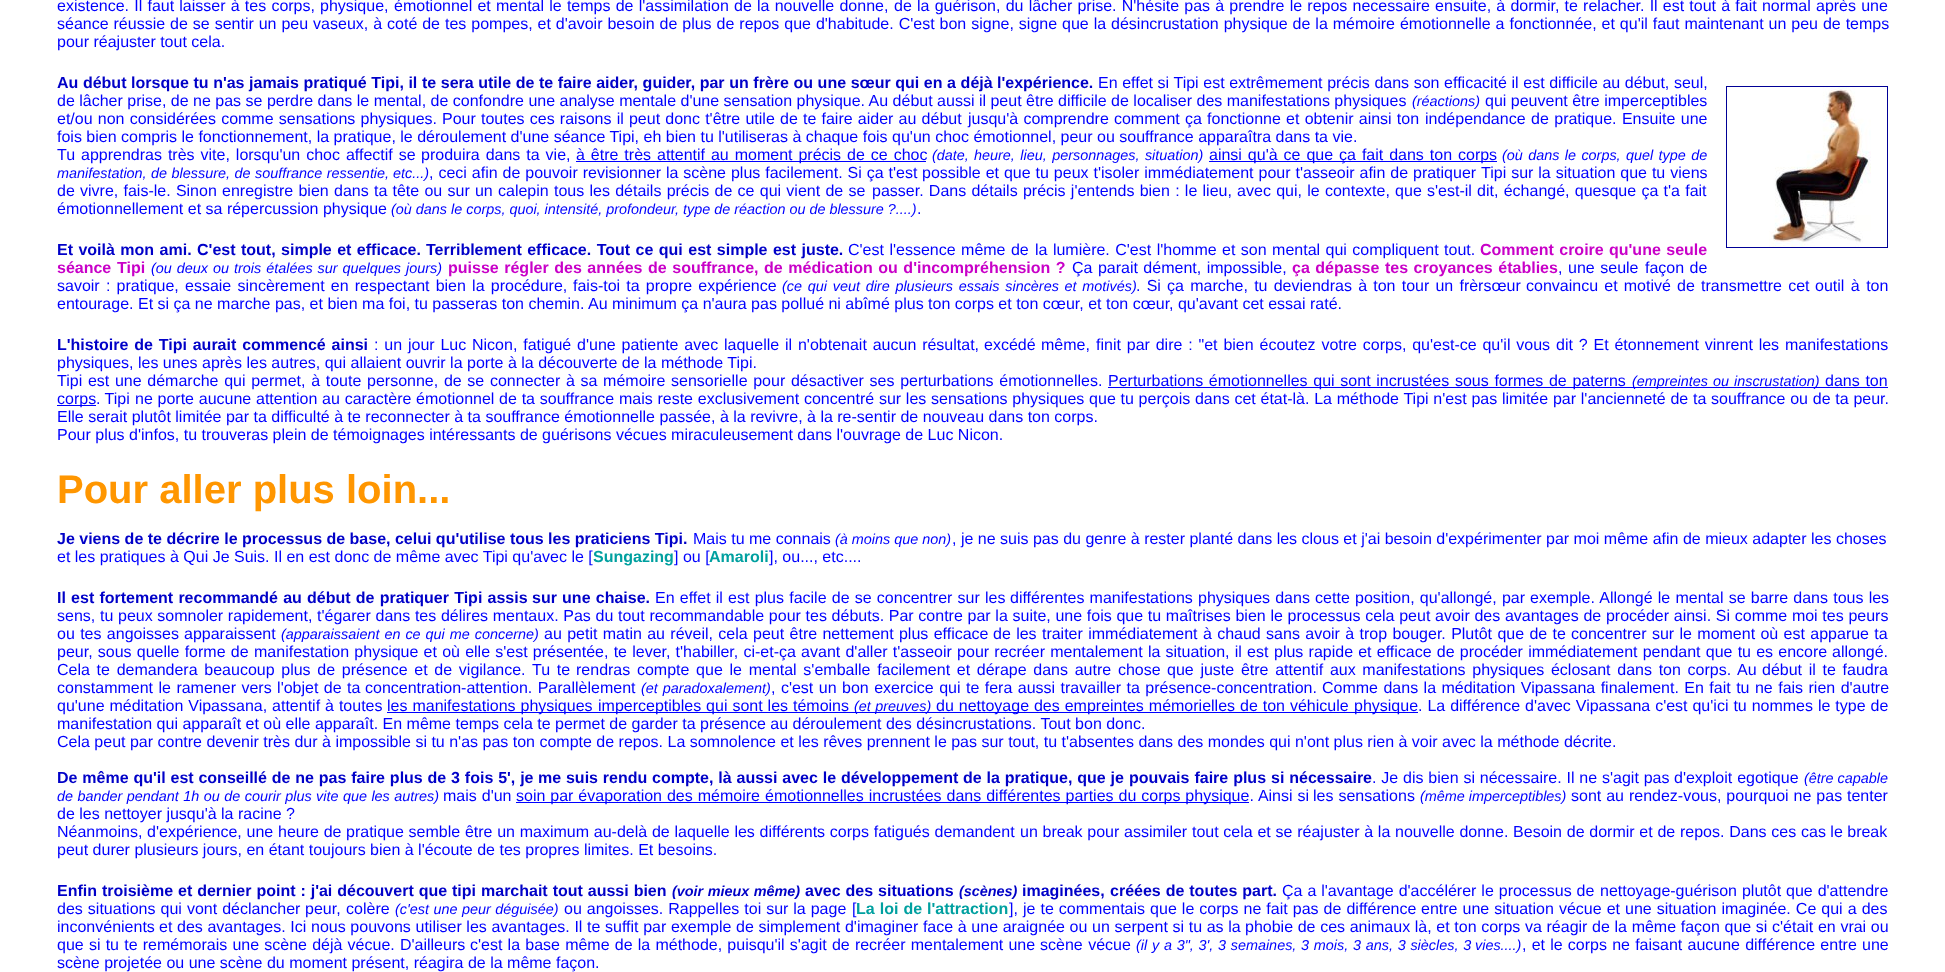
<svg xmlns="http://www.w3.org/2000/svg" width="1945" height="972">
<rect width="100%" height="100%" fill="#fff"/>
<text x="57" y="11" word-spacing="0.75" style="font-family:Liberation Sans;font-size:16px;fill:#00f">existence. Il faut laisser à tes corps,</text>
<text x="320" y="11" style="font-family:Liberation Sans;font-size:16px;fill:#00f">physique,</text>
<text x="394" y="11" word-spacing="0.75" style="font-family:Liberation Sans;font-size:16px;fill:#00f">émotionnel et mental le temps de l'assimilation de la nouvelle donne,</text>
<text x="894" y="11" word-spacing="0.75" style="font-family:Liberation Sans;font-size:16px;fill:#00f">de la guérison, du lâcher prise. N'hésite pas à prendre le repos necessaire ensuite, à dormir, te relacher. Il est tout à fait normal après une</text>
<text x="57" y="29" word-spacing="0.5" style="font-family:Liberation Sans;font-size:16px;fill:#00f">séance réussie de se sentir un peu vaseux, à coté de tes pompes, et d'avoir besoin de plus de repos que d'habitude. C'est bon signe, signe que la désincrustation physique de la mémoire émotionnelle a fonctionnée, et qu'il faut maintenant un peu de temps</text>
<text x="57" y="47" style="font-family:Liberation Sans;font-size:16px;fill:#00f">pour réajuster tout cela.</text>
<text x="57" y="88" word-spacing="0.15" style="font-family:Liberation Sans;font-size:16px;font-weight:bold;fill:#0000c8">Au début lorsque tu n'as jamais pratiqué Tipi, il te sera utile de te faire aider, guider, par un frère ou une sœur qui en a déjà</text>
<text x="997" y="88" style="font-family:Liberation Sans;font-size:16px;font-weight:bold;fill:#0000c8">l'expérience.</text>
<text x="1098" y="88" word-spacing="0.15" style="font-family:Liberation Sans;font-size:16px;fill:#00f">En effet si Tipi est extrêmement précis dans son efficacité il est difficile au début, seul,</text>
<text x="57" y="106" style="font-family:Liberation Sans;font-size:16px;fill:#00f">de lâcher prise, de ne pas se perdre dans le mental, de confondre une analyse mentale d'une sensation physique. Au début aussi il peut être difficile de localiser des manifestations physiques</text>
<text x="1412" y="106" style="font-family:Liberation Sans;font-size:14.4px;font-style:italic;fill:#00f">(réactions)</text>
<text x="1485" y="106" style="font-family:Liberation Sans;font-size:16px;fill:#00f">qui peuvent être imperceptibles</text>
<rect x="1726.5" y="86.5" width="161" height="161" fill="none" stroke="#000096"/>
<image x="1769" y="87" width="102" height="160" href="media/1.png"/>
<text x="57" y="124" word-spacing="0.75" style="font-family:Liberation Sans;font-size:16px;fill:#00f">et/ou non considérées comme sensations physiques.</text>
<text x="442" y="124" word-spacing="0.75" style="font-family:Liberation Sans;font-size:16px;fill:#00f">Pour toutes ces raisons il peut donc t'être utile de te faire aider au début</text>
<text x="968" y="124" word-spacing="0.75" style="font-family:Liberation Sans;font-size:16px;fill:#00f">jusqu'à comprendre comment ça fonctionne et obtenir ainsi ton</text>
<text x="1425" y="124" word-spacing="1" style="font-family:Liberation Sans;font-size:16px;fill:#00f">indépendance de pratique. Ensuite une</text>
<text x="57" y="142" style="font-family:Liberation Sans;font-size:16px;fill:#00f">fois bien compris le fonctionnement, la pratique, le déroulement d'une séance Tipi, eh bien tu l'utiliseras à chaque fois qu'un choc émotionnel, peur ou souffrance apparaîtra dans ta vie.</text>
<text x="57" y="160" word-spacing="1.5" style="font-family:Liberation Sans;font-size:16px;fill:#00f">Tu apprendras très vite, lorsqu'un choc affectif se</text>
<text x="421" y="160" word-spacing="1.5" style="font-family:Liberation Sans;font-size:16px;fill:#00f">produira dans ta vie,</text>
<rect x="576" y="161" width="350" height="1" fill="#00f"/>
<text x="576" y="160" word-spacing="1.5" style="font-family:Liberation Sans;font-size:16px;fill:#00f">à être très attentif au moment précis de ce choc</text>
<text x="932" y="160" style="font-family:Liberation Sans;font-size:14.4px;font-style:italic;fill:#00f">(date,</text>
<text x="974" y="160" word-spacing="1.5" style="font-family:Liberation Sans;font-size:14.4px;font-style:italic;fill:#00f">heure, lieu, personnages, situation)</text>
<rect x="1209" y="161" width="288" height="1" fill="#00f"/>
<text x="1209" y="160" word-spacing="1.5" style="font-family:Liberation Sans;font-size:16px;fill:#00f">ainsi qu'à ce que ça fait dans ton corps</text>
<text x="1502" y="160" word-spacing="1.4" style="font-family:Liberation Sans;font-size:14.4px;font-style:italic;fill:#00f">(où dans le corps, quel type de</text>
<text x="57" y="178" word-spacing="0.5" style="font-family:Liberation Sans;font-size:14.4px;font-style:italic;fill:#00f">manifestation, de blessure, de souffrance ressentie,</text>
<text x="393" y="178" style="font-family:Liberation Sans;font-size:14.4px;font-style:italic;fill:#00f">etc...)</text>
<text x="429" y="178" word-spacing="0.5" style="font-family:Liberation Sans;font-size:16px;fill:#00f">, ceci afin de pouvoir revisionner la scène plus facilement. Si ça t'est</text>
<text x="922" y="178" word-spacing="0.5" style="font-family:Liberation Sans;font-size:16px;fill:#00f">possible et que tu peux t'isoler immédiatement pour t'asseoir afin de pratiquer</text>
<text x="1481" y="178" word-spacing="0.5" style="font-family:Liberation Sans;font-size:16px;fill:#00f">Tipi sur la situation que tu viens</text>
<text x="57" y="196" word-spacing="0.8" style="font-family:Liberation Sans;font-size:16px;fill:#00f">de vivre, fais-le. Sinon enregistre bien</text>
<text x="334" y="196" word-spacing="0.8" style="font-family:Liberation Sans;font-size:16px;fill:#00f">dans ta tête ou sur un calepin tous les détails précis de ce qui vient de se</text>
<text x="872" y="196" word-spacing="0.8" style="font-family:Liberation Sans;font-size:16px;fill:#00f">passer. Dans détails précis j'entends bien : le lieu, avec qui, le contexte, que s'est-il dit, échangé, quesque ça t'a fait</text>
<text x="57" y="214" style="font-family:Liberation Sans;font-size:16px;fill:#00f">émotionnellement et sa répercussion physique</text>
<text x="391" y="214" style="font-family:Liberation Sans;font-size:14.4px;font-style:italic;fill:#00f">(où dans le corps, quoi, intensité, profondeur, type de réaction ou de blessure ?....)</text>
<text x="917" y="214" style="font-family:Liberation Sans;font-size:16px;fill:#00f">.</text>
<text x="57" y="255" word-spacing="1" style="font-family:Liberation Sans;font-size:16px;font-weight:bold;fill:#0000c8">Et voilà mon ami. C'est tout, simple et efficace.</text>
<text x="426" y="255" word-spacing="1" style="font-family:Liberation Sans;font-size:16px;font-weight:bold;fill:#0000c8">Terriblement efficace. Tout ce qui est simple est juste.</text>
<text x="848" y="255" word-spacing="1" style="font-family:Liberation Sans;font-size:16px;fill:#00f">C'est l'essence même de</text>
<text x="1035" y="255" word-spacing="1" style="font-family:Liberation Sans;font-size:16px;fill:#00f">la lumière. C'est l'homme et son mental qui compliquent tout.</text>
<text x="1480" y="255" word-spacing="1" style="font-family:Liberation Sans;font-size:16px;font-weight:bold;fill:#c800c8">Comment croire</text>
<text x="1609" y="255" word-spacing="1" style="font-family:Liberation Sans;font-size:16px;font-weight:bold;fill:#c800c8">qu'une seule</text>
<text x="57" y="273" style="font-family:Liberation Sans;font-size:16px;font-weight:bold;fill:#c800c8">séance</text>
<text x="117" y="273" style="font-family:Liberation Sans;font-size:16px;font-weight:bold;fill:#c800c8">Tipi</text>
<text x="151" y="273" word-spacing="1" style="font-family:Liberation Sans;font-size:14.4px;font-style:italic;fill:#00f">(ou deux ou trois étalées sur quelques jours)</text>
<text x="448" y="273" word-spacing="1.1" style="font-family:Liberation Sans;font-size:16px;font-weight:bold;fill:#c800c8">puisse régler des années de souffrance, de médication ou d'incompréhension ?</text>
<text x="1072" y="273" word-spacing="1" style="font-family:Liberation Sans;font-size:16px;fill:#00f">Ça parait dément, impossible,</text>
<text x="1292" y="273" word-spacing="1.1" style="font-family:Liberation Sans;font-size:16px;font-weight:bold;fill:#c800c8">ça dépasse tes croyances établies</text>
<text x="1558" y="273" word-spacing="1.1" style="font-family:Liberation Sans;font-size:16px;fill:#00f">, une seule</text>
<text x="1645" y="273" word-spacing="1" style="font-family:Liberation Sans;font-size:16px;fill:#00f">façon de</text>
<text x="57" y="291" word-spacing="1.75" style="font-family:Liberation Sans;font-size:16px;fill:#00f">savoir : pratique, essaie sincèrement en respectant bien la procédure,</text>
<text x="573" y="291" word-spacing="1.75" style="font-family:Liberation Sans;font-size:16px;fill:#00f">fais-toi ta propre expérience</text>
<text x="782" y="291" word-spacing="1.75" style="font-family:Liberation Sans;font-size:14.4px;font-style:italic;fill:#00f">(ce qui veut dire plusieurs essais sincères et motivés)</text>
<text x="1136" y="291" word-spacing="1.75" style="font-family:Liberation Sans;font-size:16px;fill:#00f">. Si ça marche, tu deviendras à ton tour un frèrsœur</text>
<text x="1526" y="291" word-spacing="1.75" style="font-family:Liberation Sans;font-size:16px;fill:#00f">convaincu et motivé de transmettre cet</text>
<text x="1815" y="291" word-spacing="2" style="font-family:Liberation Sans;font-size:16px;fill:#00f">outil à ton</text>
<text x="57" y="309" style="font-family:Liberation Sans;font-size:16px;fill:#00f">entourage. Et si ça ne marche pas, et bien ma foi, tu passeras ton chemin. Au minimum ça n'aura pas pollué ni abîmé plus ton corps et ton cœur, et ton cœur, qu'avant cet essai raté.</text>
<text x="57" y="350" word-spacing="1.4" style="font-family:Liberation Sans;font-size:16px;font-weight:bold;fill:#0000c8">L'histoire de Tipi aurait commencé ainsi</text>
<text x="374" y="350" word-spacing="1.4" style="font-family:Liberation Sans;font-size:16px;fill:#00f">: un jour Luc</text>
<text x="472" y="350" word-spacing="1.4" style="font-family:Liberation Sans;font-size:16px;fill:#00f">Nicon, fatigué d'une patiente avec laquelle il n'obtenait aucun résultat,</text>
<text x="984" y="350" word-spacing="1" style="font-family:Liberation Sans;font-size:16px;fill:#00f">excédé même,</text>
<text x="1096" y="350" word-spacing="1.4" style="font-family:Liberation Sans;font-size:16px;fill:#00f">finit par dire : "et bien écoutez votre corps, qu'est-ce qu'il vous</text>
<text x="1556" y="350" word-spacing="1.4" style="font-family:Liberation Sans;font-size:16px;fill:#00f">dit ? Et étonnement vinrent les manifestations</text>
<text x="57" y="368" style="font-family:Liberation Sans;font-size:16px;fill:#00f">physiques, les unes après les autres, qui allaient ouvrir la porte à la découverte de la méthode Tipi.</text>
<text x="57" y="386" word-spacing="1.25" style="font-family:Liberation Sans;font-size:16px;fill:#00f">Tipi est une démarche qui permet, à toute personne, de se connecter à sa mémoire sensorielle pour désactiver ses perturbations émotionnelles.</text>
<rect x="1108" y="387" width="780" height="1" fill="#00f"/>
<text x="1108" y="386" word-spacing="1.25" style="font-family:Liberation Sans;font-size:16px;fill:#00f">Perturbations émotionnelles qui sont incrustées sous formes de paterns</text>
<text x="1632" y="386" word-spacing="1" style="font-family:Liberation Sans;font-size:14.4px;font-style:italic;fill:#00f">(empreintes ou inscrustation)</text>
<text x="1825" y="386" word-spacing="1.25" style="font-family:Liberation Sans;font-size:16px;fill:#00f">dans ton</text>
<rect x="57" y="405" width="39" height="1" fill="#00f"/>
<text x="57" y="404" style="font-family:Liberation Sans;font-size:16px;fill:#00f">corps</text>
<text x="96" y="404" style="font-family:Liberation Sans;font-size:16px;fill:#00f">. Tipi</text>
<text x="135" y="404" word-spacing="0.3" style="font-family:Liberation Sans;font-size:16px;fill:#00f">ne porte aucune attention au caractère émotionnel de ta souffrance mais reste exclusivement concentré sur les sensations physiques que tu perçois dans cet état-là. La méthode Tipi n'est pas limitée par l'ancienneté de ta souffrance ou de ta peur.</text>
<text x="57" y="422" style="font-family:Liberation Sans;font-size:16px;fill:#00f">Elle serait plutôt limitée par ta difficulté à te reconnecter à ta souffrance émotionnelle passée, à la revivre, à la re-sentir de nouveau dans ton corps.</text>
<text x="57" y="440" style="font-family:Liberation Sans;font-size:16px;fill:#00f">Pour plus d'infos, tu trouveras plein de témoignages intéressants de guérisons vécues miraculeusement dans l'ouvrage de Luc Nicon.</text>
<text x="57" y="503" style="font-family:Liberation Sans;font-size:40px;font-weight:bold;fill:#ff9600">Pour aller plus loin...</text>
<text x="57" y="544" style="font-family:Liberation Sans;font-size:16px;font-weight:bold;fill:#0000c8">Je viens de te décrire le processus de base, celui qu'utilise tous les praticiens Tipi.</text>
<text x="693" y="544" style="font-family:Liberation Sans;font-size:16px;fill:#00f">Mais tu me connais</text>
<text x="835" y="544" style="font-family:Liberation Sans;font-size:14.4px;font-style:italic;fill:#00f">(à moins que non)</text>
<text x="952" y="544" style="font-family:Liberation Sans;font-size:16px;fill:#00f">, je ne suis pas du genre à rester planté dans les clous et j'ai besoin d'expérimenter par moi même afin de mieux adapter les choses</text>
<text x="57" y="562" style="font-family:Liberation Sans;font-size:16px;fill:#00f">et les pratiques à Qui Je Suis. Il en est donc de même avec Tipi qu'avec le [</text>
<text x="593" y="562" style="font-family:Liberation Sans;font-size:16px;font-weight:bold;fill:#00a0a0">Sungazing</text>
<text x="674" y="562" style="font-family:Liberation Sans;font-size:16px;fill:#00f">] ou [</text>
<text x="709" y="562" style="font-family:Liberation Sans;font-size:16px;font-weight:bold;fill:#00a0a0">Amaroli</text>
<text x="769" y="562" style="font-family:Liberation Sans;font-size:16px;fill:#00f">], ou..., etc....</text>
<text x="57" y="603" word-spacing="0.75" style="font-family:Liberation Sans;font-size:16px;font-weight:bold;fill:#0000c8">Il est fortement recommandé au début de pratiquer Tipi assis</text>
<text x="532" y="603" word-spacing="0.75" style="font-family:Liberation Sans;font-size:16px;font-weight:bold;fill:#0000c8">sur une chaise.</text>
<text x="655" y="603" word-spacing="0.75" style="font-family:Liberation Sans;font-size:16px;fill:#00f">En effet il est plus facile de se concentrer sur les</text>
<text x="1010" y="603" word-spacing="0.75" style="font-family:Liberation Sans;font-size:16px;fill:#00f">différentes manifestations physiques dans cette position, qu'allongé, par</text>
<text x="1530" y="603" word-spacing="0.75" style="font-family:Liberation Sans;font-size:16px;fill:#00f">exemple. Allongé le mental se barre dans tous les</text>
<text x="57" y="621" word-spacing="0.25" style="font-family:Liberation Sans;font-size:16px;fill:#00f">sens, tu peux somnoler rapidement, t'égarer dans tes délires mentaux. Pas du tout recommandable pour tes débuts. Par contre par la suite, une fois que tu maîtrises bien le processus cela peut avoir des avantages de procéder ainsi. Si comme moi tes peurs</text>
<text x="57" y="639" word-spacing="0.9" style="font-family:Liberation Sans;font-size:16px;fill:#00f">ou tes angoisses</text>
<text x="184" y="639" style="font-family:Liberation Sans;font-size:16px;fill:#00f">apparaissent</text>
<text x="281" y="639" word-spacing="1" style="font-family:Liberation Sans;font-size:14.4px;font-style:italic;fill:#00f">(apparaissaient en ce qui me concerne)</text>
<text x="544" y="639" word-spacing="0.9" style="font-family:Liberation Sans;font-size:16px;fill:#00f">au petit matin au réveil, cela peut être nettement plus efficace</text>
<text x="993" y="639" word-spacing="0.9" style="font-family:Liberation Sans;font-size:16px;fill:#00f">de les traiter immédiatement à chaud sans avoir à trop bouger. Plutôt que de te</text>
<text x="1571" y="639" word-spacing="0.9" style="font-family:Liberation Sans;font-size:16px;fill:#00f">concentrer sur le moment où est apparue ta</text>
<text x="57" y="657" word-spacing="0.75" style="font-family:Liberation Sans;font-size:16px;fill:#00f">peur, sous quelle forme de</text>
<text x="254" y="657" word-spacing="0.75" style="font-family:Liberation Sans;font-size:16px;fill:#00f">manifestation physique et où elle s'est présentée, te lever, t'habiller, ci-et-ça avant d'aller t'asseoir pour recréer mentalement la situation, il est</text>
<text x="1274" y="657" word-spacing="0.75" style="font-family:Liberation Sans;font-size:16px;fill:#00f">plus rapide et efficace de procéder immédiatement pendant que tu es encore</text>
<text x="1832" y="657" style="font-family:Liberation Sans;font-size:16px;fill:#00f">allongé.</text>
<text x="57" y="675" word-spacing="2.25" style="font-family:Liberation Sans;font-size:16px;fill:#00f">Cela te demandera beaucoup plus de présence et de vigilance. Tu te</text>
<text x="576" y="675" word-spacing="2.25" style="font-family:Liberation Sans;font-size:16px;fill:#00f">rendras compte que le mental s'emballe facilement et dérape dans autre chose</text>
<text x="1167" y="675" word-spacing="2.25" style="font-family:Liberation Sans;font-size:16px;fill:#00f">que juste être attentif aux manifestations physiques éclosant dans ton corps. Au</text>
<text x="1762" y="675" word-spacing="2.25" style="font-family:Liberation Sans;font-size:16px;fill:#00f">début il te faudra</text>
<text x="57" y="693" word-spacing="1" style="font-family:Liberation Sans;font-size:16px;fill:#00f">constamment le ramener vers l'objet de ta</text>
<text x="365" y="693" word-spacing="1" style="font-family:Liberation Sans;font-size:16px;fill:#00f">concentration-attention. Parallèlement</text>
<text x="641" y="693" word-spacing="1" style="font-family:Liberation Sans;font-size:14.4px;font-style:italic;fill:#00f">(et paradoxalement)</text>
<text x="771" y="693" word-spacing="1" style="font-family:Liberation Sans;font-size:16px;fill:#00f">, c'est un</text>
<text x="842" y="693" word-spacing="1" style="font-family:Liberation Sans;font-size:16px;fill:#00f">bon exercice qui te fera aussi travailler ta présence-concentration.</text>
<text x="1322" y="693" word-spacing="1" style="font-family:Liberation Sans;font-size:16px;fill:#00f">Comme dans la méditation Vipassana finalement. En fait tu ne fais rien d'autre</text>
<text x="57" y="711" word-spacing="0.5" style="font-family:Liberation Sans;font-size:16px;fill:#00f">qu'une méditation Vipassana, attentif à toutes</text>
<rect x="387" y="712" width="1031" height="1" fill="#00f"/>
<text x="387" y="711" word-spacing="0.5" style="font-family:Liberation Sans;font-size:16px;fill:#00f">les manifestations physiques</text>
<text x="598" y="711" word-spacing="0.5" style="font-family:Liberation Sans;font-size:16px;fill:#00f">imperceptibles qui sont les témoins</text>
<text x="854" y="711" word-spacing="0.5" style="font-family:Liberation Sans;font-size:14.4px;font-style:italic;fill:#00f">(et preuves)</text>
<text x="936" y="711" word-spacing="0.5" style="font-family:Liberation Sans;font-size:16px;fill:#00f">du nettoyage des empreintes mémorielles de ton véhicule</text>
<text x="1354" y="711" style="font-family:Liberation Sans;font-size:16px;fill:#00f">physique</text>
<text x="1418" y="711" word-spacing="0.5" style="font-family:Liberation Sans;font-size:16px;fill:#00f">. La différence d'avec Vipassana c'est qu'ici tu nommes le type de</text>
<text x="57" y="729" style="font-family:Liberation Sans;font-size:16px;fill:#00f">manifestation qui apparaît et où elle apparaît. En même temps cela te permet de garder ta présence au déroulement des désincrustations. Tout bon donc.</text>
<text x="57" y="747" style="font-family:Liberation Sans;font-size:16px;fill:#00f">Cela peut par contre devenir très dur à impossible si tu n'as pas ton compte de repos. La somnolence et les rêves prennent le pas sur tout, tu t'absentes dans des mondes qui n'ont plus rien à voir avec la méthode décrite.</text>
<text x="57" y="783" word-spacing="0.4" style="font-family:Liberation Sans;font-size:16px;font-weight:bold;fill:#0000c8">De même qu'il est conseillé de ne pas faire plus de 3 fois 5', je</text>
<text x="538" y="783" word-spacing="0.4" style="font-family:Liberation Sans;font-size:16px;font-weight:bold;fill:#0000c8">me suis rendu compte, là aussi avec le développement de la pratique, que je</text>
<text x="1129" y="783" word-spacing="0.5" style="font-family:Liberation Sans;font-size:16px;font-weight:bold;fill:#0000c8">pouvais faire plus si nécessaire</text>
<text x="1372" y="783" word-spacing="0.4" style="font-family:Liberation Sans;font-size:16px;fill:#00f">. Je dis bien si nécessaire. Il ne s'agit pas</text>
<text x="1674" y="783" word-spacing="0.5" style="font-family:Liberation Sans;font-size:16px;fill:#00f">d'exploit egotique</text>
<text x="1804" y="783" style="font-family:Liberation Sans;font-size:14.4px;font-style:italic;fill:#00f">(être capable</text>
<text x="57" y="801" word-spacing="0.5" style="font-family:Liberation Sans;font-size:14.4px;font-style:italic;fill:#00f">de bander pendant 1h ou de courir plus</text>
<text x="316" y="801" word-spacing="0.5" style="font-family:Liberation Sans;font-size:14.4px;font-style:italic;fill:#00f">vite que les autres)</text>
<text x="443" y="801" word-spacing="0.5" style="font-family:Liberation Sans;font-size:16px;fill:#00f">mais d'un</text>
<rect x="516" y="802" width="733" height="1" fill="#00f"/>
<text x="516" y="801" word-spacing="0.5" style="font-family:Liberation Sans;font-size:16px;fill:#00f">soin par évaporation des mémoire</text>
<text x="765" y="801" word-spacing="0.5" style="font-family:Liberation Sans;font-size:16px;fill:#00f">émotionnelles incrustées dans différentes parties du corps physique. Ainsi si</text>
<text x="1313" y="801" word-spacing="0.5" style="font-family:Liberation Sans;font-size:16px;fill:#00f">les sensations</text>
<text x="1420" y="801" style="font-family:Liberation Sans;font-size:14.4px;font-style:italic;fill:#00f">(même imperceptibles)</text>
<text x="1571" y="801" word-spacing="0.5" style="font-family:Liberation Sans;font-size:16px;fill:#00f">sont au rendez-vous, pourquoi ne pas</text>
<text x="1847" y="801" style="font-family:Liberation Sans;font-size:16px;fill:#00f">tenter</text>
<text x="57" y="819" style="font-family:Liberation Sans;font-size:16px;fill:#00f">de les nettoyer jusqu'à la racine ?</text>
<text x="57" y="837" word-spacing="0.3" style="font-family:Liberation Sans;font-size:16px;fill:#00f">Néanmoins, d'expérience, une heure de</text>
<text x="346" y="837" word-spacing="0.3" style="font-family:Liberation Sans;font-size:16px;fill:#00f">pratique semble être un maximum au-delà de laquelle les différents corps fatigués demandent</text>
<text x="1020" y="837" word-spacing="0.3" style="font-family:Liberation Sans;font-size:16px;fill:#00f">un break pour assimiler tout cela et se réajuster à la nouvelle donne. Besoin de dormir et de repos. Dans ces</text>
<text x="1801" y="837" style="font-family:Liberation Sans;font-size:16px;fill:#00f">cas le break</text>
<text x="57" y="855" style="font-family:Liberation Sans;font-size:16px;fill:#00f">peut durer plusieurs jours, en étant toujours bien à l'écoute de tes propres limites. Et besoins.</text>
<text x="57" y="896" word-spacing="0.5" style="font-family:Liberation Sans;font-size:16px;font-weight:bold;fill:#0000c8">Enfin troisième et dernier point : j'ai découvert que tipi</text>
<text x="481" y="896" word-spacing="0.5" style="font-family:Liberation Sans;font-size:16px;font-weight:bold;fill:#0000c8">marchait tout aussi bien</text>
<text x="672" y="896" word-spacing="0.5" style="font-family:Liberation Sans;font-size:14.4px;font-weight:bold;font-style:italic;fill:#0000c8">(voir mieux même)</text>
<text x="805" y="896" word-spacing="0.5" style="font-family:Liberation Sans;font-size:16px;font-weight:bold;fill:#0000c8">avec des situations</text>
<text x="959" y="896" style="font-family:Liberation Sans;font-size:14.4px;font-weight:bold;font-style:italic;fill:#0000c8">(scènes)</text>
<text x="1022" y="896" style="font-family:Liberation Sans;font-size:16px;font-weight:bold;fill:#0000c8">imaginées,</text>
<text x="1110" y="896" word-spacing="0.5" style="font-family:Liberation Sans;font-size:16px;font-weight:bold;fill:#0000c8">créées de toutes part.</text>
<text x="1282" y="896" word-spacing="0.5" style="font-family:Liberation Sans;font-size:16px;fill:#00f">Ça a l'avantage d'accélérer le processus de</text>
<text x="1600" y="896" word-spacing="0.5" style="font-family:Liberation Sans;font-size:16px;fill:#00f">nettoyage-guérison plutôt que d'attendre</text>
<text x="57" y="914" word-spacing="0.6" style="font-family:Liberation Sans;font-size:16px;fill:#00f">des situations qui vont déclancher</text>
<text x="305" y="914" word-spacing="1" style="font-family:Liberation Sans;font-size:16px;fill:#00f">peur, colère</text>
<text x="395" y="914" word-spacing="0.5" style="font-family:Liberation Sans;font-size:14.4px;font-style:italic;fill:#00f">(c'est une peur déguisée)</text>
<text x="564" y="914" word-spacing="0.5" style="font-family:Liberation Sans;font-size:16px;fill:#00f">ou angoisses. Rappelles toi sur la page</text>
<text x="852" y="914" style="font-family:Liberation Sans;font-size:16px;fill:#00f">[</text>
<text x="856" y="914" word-spacing="0.6" style="font-family:Liberation Sans;font-size:16px;font-weight:bold;fill:#00a0a0">La loi de</text>
<text x="927" y="914" style="font-family:Liberation Sans;font-size:16px;font-weight:bold;fill:#00a0a0">l'attraction</text>
<text x="1009" y="914" word-spacing="0.6" style="font-family:Liberation Sans;font-size:16px;fill:#00f">], je te commentais que le corps ne fait pas de différence</text>
<text x="1421" y="914" word-spacing="0.6" style="font-family:Liberation Sans;font-size:16px;fill:#00f">entre une situation vécue et une situation imaginée. Ce qui a des</text>
<text x="57" y="932" style="font-family:Liberation Sans;font-size:16px;fill:#00f">inconvénients</text>
<text x="159" y="932" word-spacing="0.2" style="font-family:Liberation Sans;font-size:16px;fill:#00f">et des avantages. Ici nous pouvons utiliser les avantages. Il te suffit par exemple de simplement d'imaginer face à une araignée ou un serpent si tu as la</text>
<text x="1245" y="932" word-spacing="0.2" style="font-family:Liberation Sans;font-size:16px;fill:#00f">phobie de ces animaux là, et ton corps va réagir de la même façon que si</text>
<text x="1772" y="932" word-spacing="0.2" style="font-family:Liberation Sans;font-size:16px;fill:#00f">c'était en vrai ou</text>
<text x="57" y="950" word-spacing="0.75" style="font-family:Liberation Sans;font-size:16px;fill:#00f">que si tu te remémorais une scène déjà vécue. D'ailleurs</text>
<text x="470" y="950" word-spacing="0.75" style="font-family:Liberation Sans;font-size:16px;fill:#00f">c'est la base même de la méthode, puisqu'il s'agit de recréer mentalement une</text>
<text x="1040" y="950" word-spacing="1" style="font-family:Liberation Sans;font-size:16px;fill:#00f">scène vécue</text>
<text x="1136" y="950" word-spacing="0.75" style="font-family:Liberation Sans;font-size:14.4px;font-style:italic;fill:#00f">(il y a 3", 3', 3 semaines, 3 mois, 3 ans, 3 siècles, 3</text>
<text x="1475" y="950" style="font-family:Liberation Sans;font-size:14.4px;font-style:italic;fill:#00f">vies....)</text>
<text x="1522" y="950" word-spacing="0.75" style="font-family:Liberation Sans;font-size:16px;fill:#00f">, et le corps ne faisant aucune différence entre une</text>
<text x="57" y="968" style="font-family:Liberation Sans;font-size:16px;fill:#00f">scène projetée ou une scène du moment présent, réagira de la même façon.</text>
</svg>
